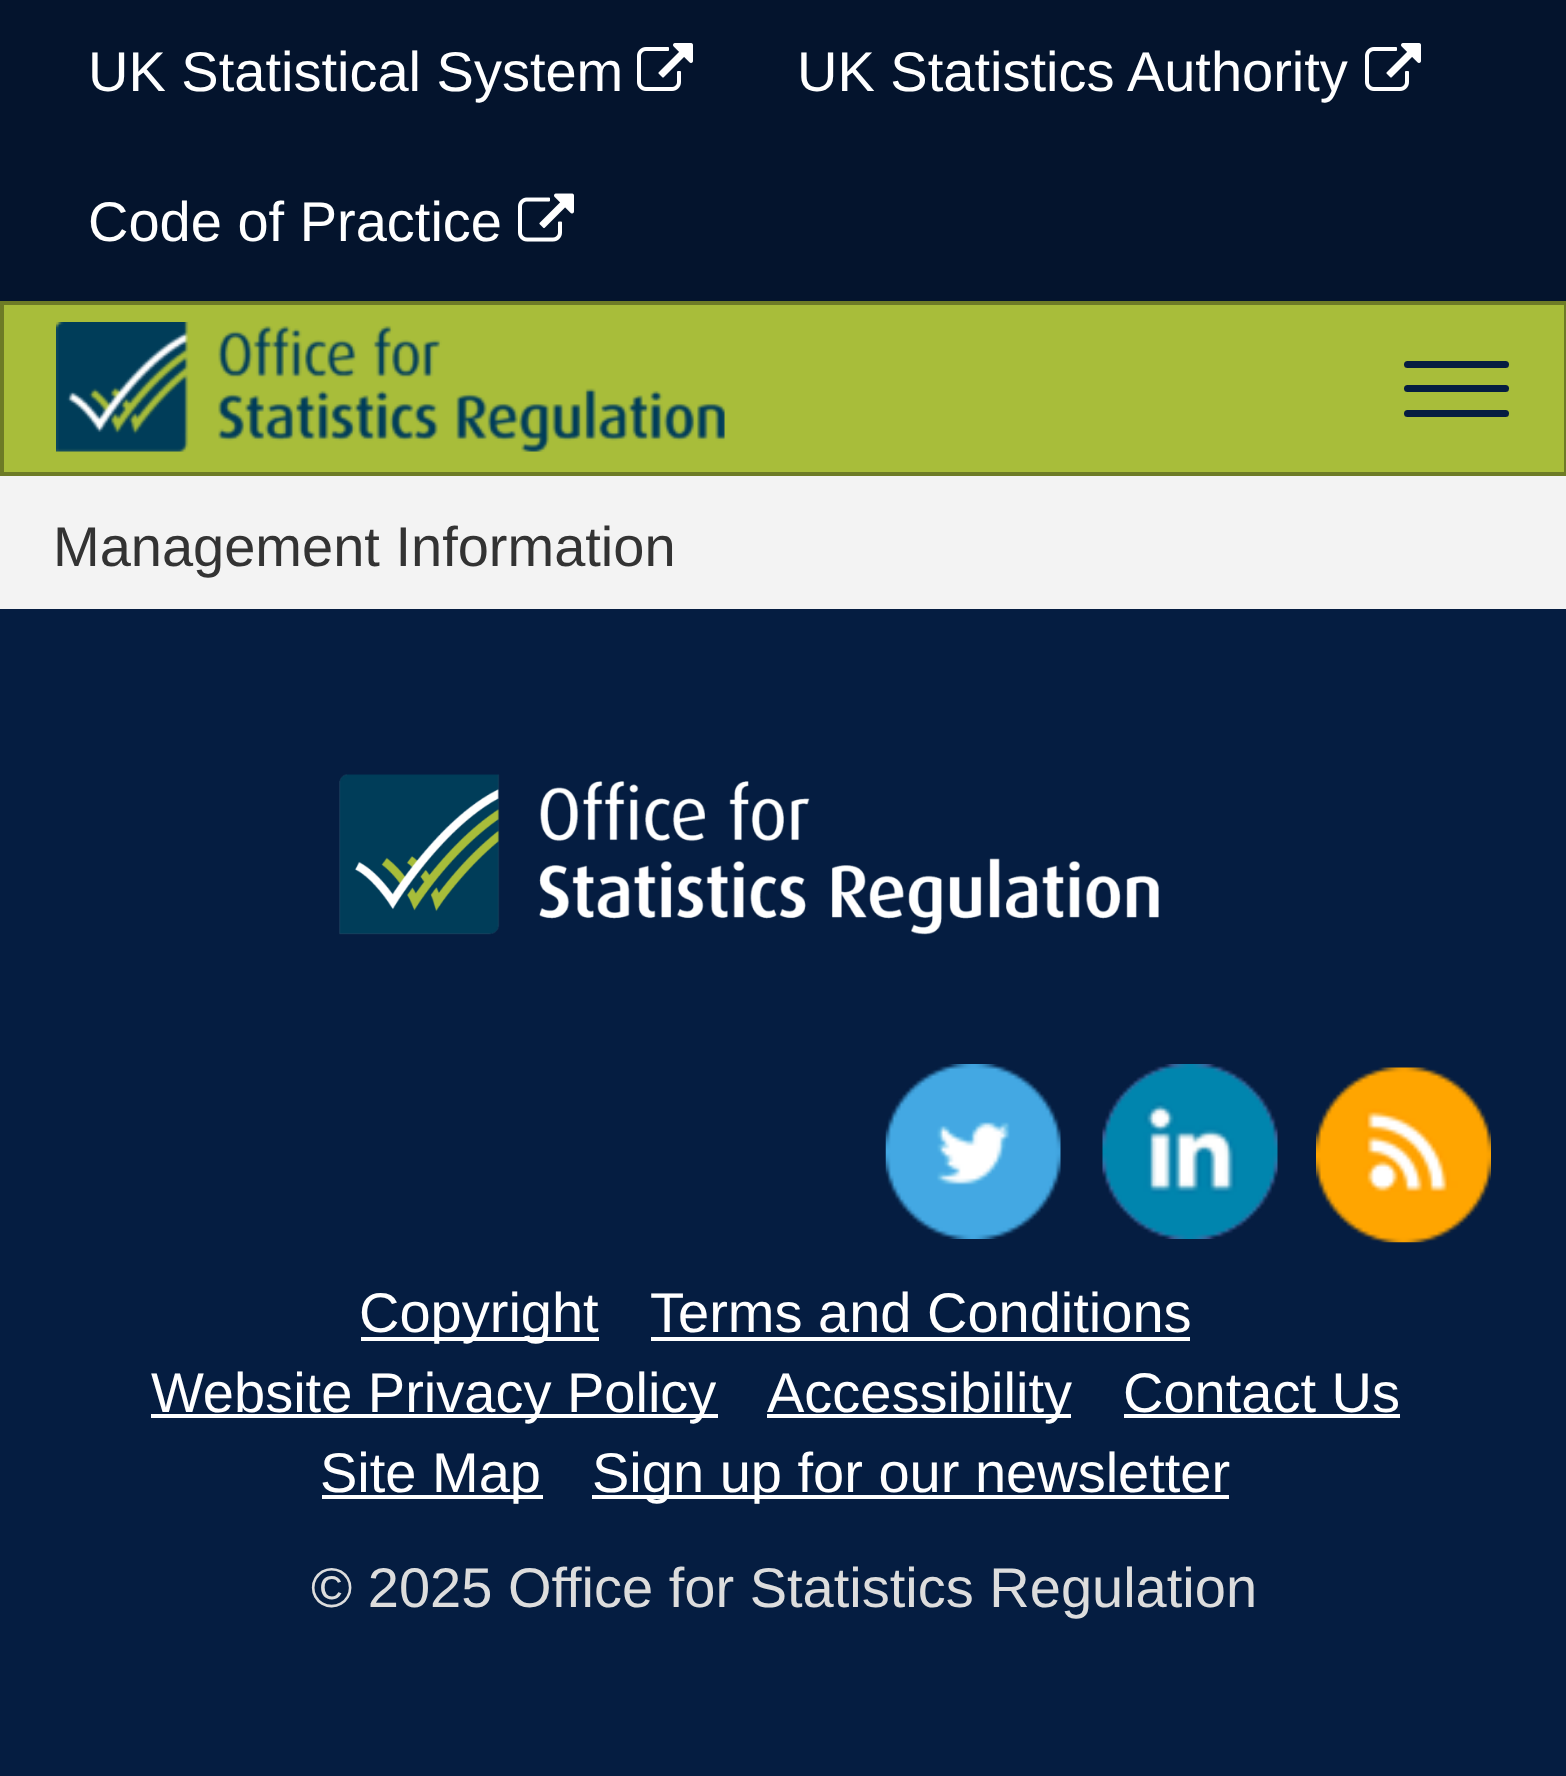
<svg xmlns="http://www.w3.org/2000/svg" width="1566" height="1776">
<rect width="100%" height="100%" fill="#051d41"/>
<rect width="1566" height="301" fill="#04142d"/>
<text x="88" y="91" style="font-family:Liberation Sans;font-size:56px;fill:#fff">UK Statistical System</text>
<image x="637" y="43" width="56" height="48" href="media/1.png"/>
<text x="797" y="91" style="font-family:Liberation Sans;font-size:56px;fill:#fff">UK Statistics Authority</text>
<image x="1365" y="43" width="56" height="48" href="media/1.png"/>
<text x="88" y="241" style="font-family:Liberation Sans;font-size:56px;fill:#fff">Code of Practice</text>
<image x="518" y="193" width="56" height="49" href="media/2.png"/>
<rect x="2" y="303" width="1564" height="171" fill="#a8bd3a" stroke="#6d7b26" stroke-width="4"/>
<image x="56" y="322" width="669" height="130" href="media/3.png"/>
<rect x="1404" y="361" width="105" height="7" rx="3.5" fill="#051d41"/>
<rect x="1404" y="385" width="105" height="7" rx="3.5" fill="#051d41"/>
<rect x="1404" y="410" width="105" height="7" rx="3.5" fill="#051d41"/>
<rect y="476" width="1566" height="133" fill="#f3f3f3"/>
<text x="53" y="566" style="font-family:Liberation Sans;font-size:56px;fill:#333">Management Information</text>
<image x="339" y="774" width="820" height="161" href="media/4.png"/>
<image x="885" y="1064" width="176" height="175" href="media/5.png"/>
<image x="1102" y="1064" width="176" height="175" href="media/6.png"/>
<image x="1316" y="1067" width="175" height="176" href="media/7.png"/>
<rect x="361" y="1337" width="238" height="4" fill="#fff"/>
<text x="359" y="1332" style="font-family:Liberation Sans;font-size:56px;fill:#fff">Copyright</text>
<text x="650" y="1332" style="font-family:Liberation Sans;font-size:56px;fill:#fff">Terms and Conditions</text>
<rect x="651" y="1337" width="539" height="4" fill="#fff"/>
<rect x="151" y="1414" width="567" height="4" fill="#fff"/>
<text x="151" y="1412" style="font-family:Liberation Sans;font-size:56px;fill:#fff">Website Privacy Policy</text>
<rect x="767" y="1414" width="304" height="4" fill="#fff"/>
<text x="767" y="1412" style="font-family:Liberation Sans;font-size:56px;fill:#fff">Accessibility</text>
<text x="1123" y="1412" style="font-family:Liberation Sans;font-size:56px;fill:#fff">Contact Us</text>
<rect x="1124" y="1414" width="276" height="4" fill="#fff"/>
<rect x="322" y="1495" width="221" height="4" fill="#fff"/>
<text x="320" y="1492" style="font-family:Liberation Sans;font-size:56px;fill:#fff">Site Map</text>
<rect x="592" y="1495" width="637" height="4" fill="#fff"/>
<text x="592" y="1492" style="font-family:Liberation Sans;font-size:56px;fill:#fff">Sign up for our newsletter</text>
<text x="311" y="1607" style="font-family:Liberation Sans;font-size:56px;fill:#ddd">© 2025 Office for Statistics Regulation</text>
</svg>
